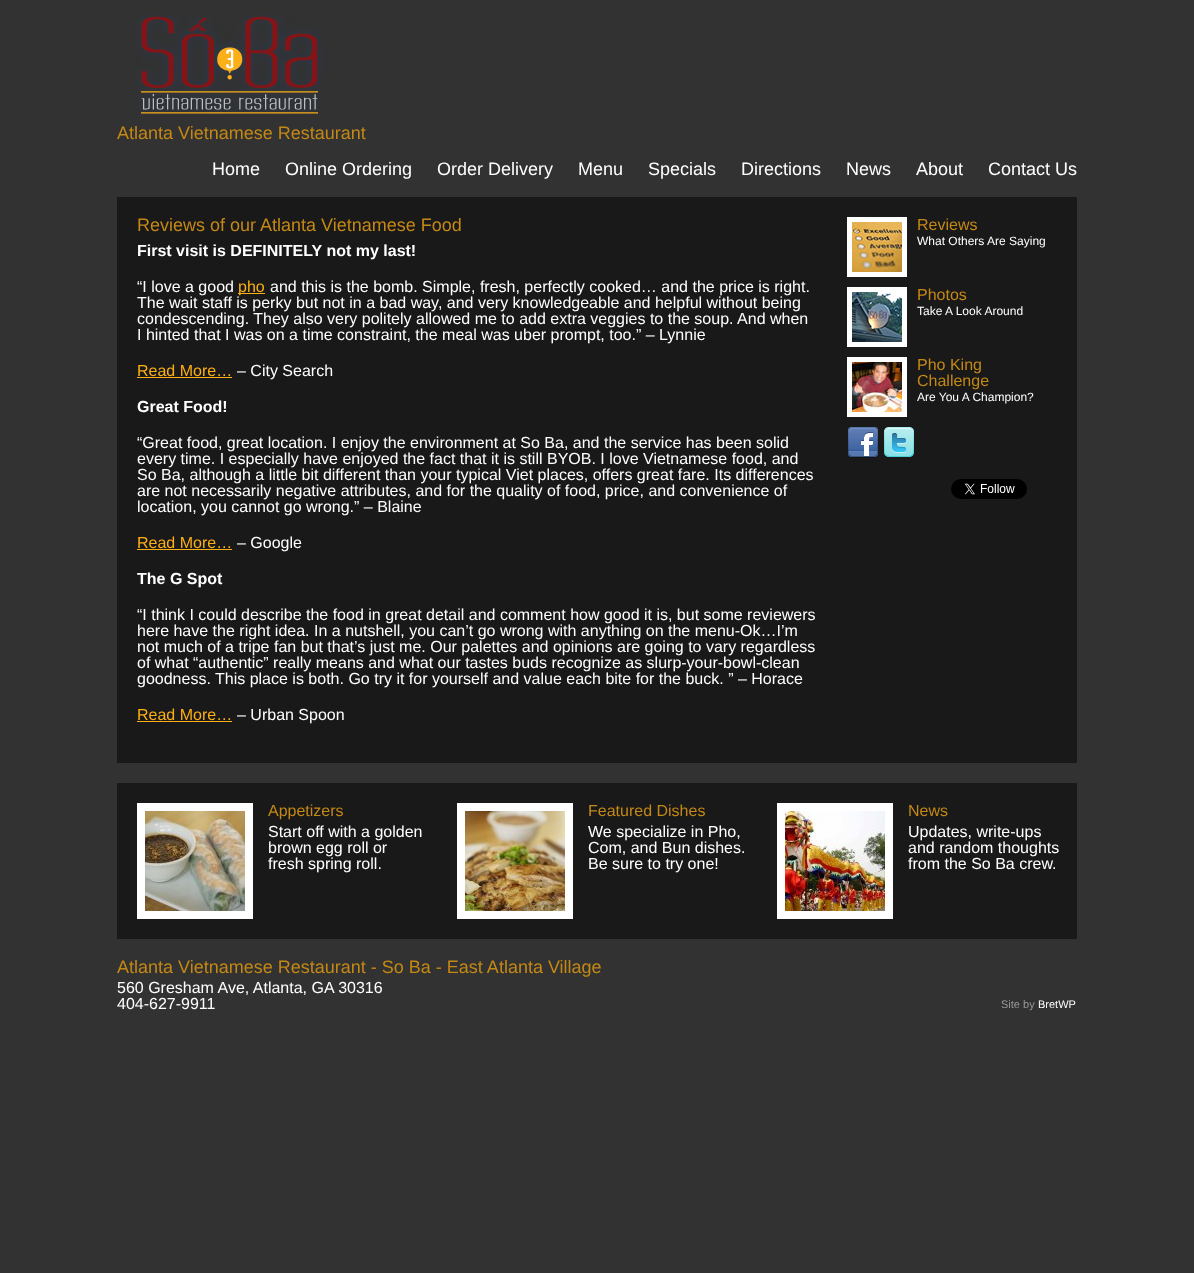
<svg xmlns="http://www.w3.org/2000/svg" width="1194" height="1273">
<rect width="100%" height="100%" fill="#323232"/>
<image x="136" y="15" width="187" height="100" href="media/1.png"/>
<text x="117" y="139" style="font-family:Liberation Sans;font-size:18px;fill:#c48815">Atlanta Vietnamese Restaurant</text>
<text x="212" y="175" style="font-family:Liberation Sans;font-size:18px;fill:#fff">Home</text>
<text x="285" y="175" style="font-family:Liberation Sans;font-size:18px;fill:#fff">Online Ordering</text>
<text x="437" y="175" style="font-family:Liberation Sans;font-size:18px;fill:#fff">Order Delivery</text>
<text x="578" y="175" style="font-family:Liberation Sans;font-size:18px;fill:#fff">Menu</text>
<text x="648" y="175" style="font-family:Liberation Sans;font-size:18px;fill:#fff">Specials</text>
<text x="741" y="175" style="font-family:Liberation Sans;font-size:18px;fill:#fff">Directions</text>
<text x="846" y="175" style="font-family:Liberation Sans;font-size:18px;fill:#fff">News</text>
<text x="916" y="175" style="font-family:Liberation Sans;font-size:18px;fill:#fff">About</text>
<text x="988" y="175" style="font-family:Liberation Sans;font-size:18px;fill:#fff">Contact Us</text>
<rect x="117" y="197" width="960" height="566" fill="#191919"/>
<text x="137" y="231" style="font-family:Liberation Sans;font-size:18px;fill:#c48815">Reviews of our Atlanta Vietnamese Food</text>
<text x="137" y="256" style="font-family:Liberation Sans;font-size:16px;font-weight:bold;fill:#fff">First visit is DEFINITELY not my last!</text>
<text x="137" y="292" style="font-family:Liberation Sans;font-size:16px;fill:#fff">“I love a good</text>
<rect x="238" y="293" width="27" height="1" fill="#fcaf17"/>
<text x="238" y="292" style="font-family:Liberation Sans;font-size:16px;fill:#fcaf17">pho</text>
<text x="270" y="292" style="font-family:Liberation Sans;font-size:16px;fill:#fff">and this is the bomb. Simple, fresh, perfectly cooked… and the price is right.</text>
<text x="137" y="308" style="font-family:Liberation Sans;font-size:16px;fill:#fff">The wait staff is perky but not in a bad way, and very knowledgeable and helpful without being</text>
<text x="137" y="324" style="font-family:Liberation Sans;font-size:16px;fill:#fff">condescending. They also very politely allowed me to add extra veggies to the soup. And when</text>
<text x="137" y="340" style="font-family:Liberation Sans;font-size:16px;fill:#fff">I hinted that I was on a time constraint, the meal was uber prompt, too.” – Lynnie</text>
<text x="137" y="376" style="font-family:Liberation Sans;font-size:16px;fill:#fcaf17">Read More…</text>
<rect x="137" y="377" width="95" height="1" fill="#fcaf17"/>
<text x="237" y="376" style="font-family:Liberation Sans;font-size:16px;fill:#fff">– City Search</text>
<text x="137" y="412" style="font-family:Liberation Sans;font-size:16px;font-weight:bold;fill:#fff">Great Food!</text>
<text x="137" y="448" style="font-family:Liberation Sans;font-size:16px;fill:#fff">“Great food, great location. I enjoy the environment at So Ba, and the service has been solid</text>
<text x="137" y="464" style="font-family:Liberation Sans;font-size:16px;fill:#fff">every time. I especially have enjoyed the fact that it is still BYOB. I love Vietnamese food, and</text>
<text x="137" y="480" style="font-family:Liberation Sans;font-size:16px;fill:#fff">So Ba, although a little bit different than your typical Viet places, offers great fare. Its differences</text>
<text x="137" y="496" style="font-family:Liberation Sans;font-size:16px;fill:#fff">are not necessarily negative attributes, and for the quality of food, price, and convenience of</text>
<text x="137" y="512" style="font-family:Liberation Sans;font-size:16px;fill:#fff">location, you cannot go wrong.” – Blaine</text>
<text x="137" y="548" style="font-family:Liberation Sans;font-size:16px;fill:#fcaf17">Read More…</text>
<rect x="137" y="549" width="95" height="1" fill="#fcaf17"/>
<text x="237" y="548" style="font-family:Liberation Sans;font-size:16px;fill:#fff">– Google</text>
<text x="137" y="584" style="font-family:Liberation Sans;font-size:16px;font-weight:bold;fill:#fff">The G Spot</text>
<text x="137" y="620" style="font-family:Liberation Sans;font-size:16px;fill:#fff">“I think I could describe the food in great detail and comment how good it is, but some reviewers</text>
<text x="137" y="636" style="font-family:Liberation Sans;font-size:16px;fill:#fff">here have the right idea. In a nutshell, you can’t go wrong with anything on the menu-Ok…I’m</text>
<text x="137" y="652" style="font-family:Liberation Sans;font-size:16px;fill:#fff">not much of a tripe fan but that’s just me. Our palettes and opinions are going to vary regardless</text>
<text x="137" y="668" style="font-family:Liberation Sans;font-size:16px;fill:#fff">of what “authentic” really means and what our tastes buds recognize as slurp-your-bowl-clean</text>
<text x="137" y="684" style="font-family:Liberation Sans;font-size:16px;fill:#fff">goodness. This place is both. Go try it for yourself and value each bite for the buck. ” – Horace</text>
<text x="137" y="720" style="font-family:Liberation Sans;font-size:16px;fill:#fcaf17">Read More…</text>
<rect x="137" y="721" width="95" height="1" fill="#fcaf17"/>
<text x="237" y="720" style="font-family:Liberation Sans;font-size:16px;fill:#fff">– Urban Spoon</text>
<rect x="847" y="217" width="60" height="60" fill="#fff"/>
<image x="852" y="222" width="50" height="50" href="media/2.png"/>
<text x="917" y="230" style="font-family:Liberation Sans;font-size:16px;fill:#c48815">Reviews</text>
<text x="917" y="245" style="font-family:Liberation Sans;font-size:12px;fill:#fff">What Others Are Saying</text>
<rect x="847" y="287" width="60" height="60" fill="#fff"/>
<image x="852" y="292" width="50" height="50" href="media/3.png"/>
<text x="917" y="300" style="font-family:Liberation Sans;font-size:16px;fill:#c48815">Photos</text>
<text x="917" y="315" style="font-family:Liberation Sans;font-size:12px;fill:#fff">Take A Look Around</text>
<rect x="847" y="357" width="60" height="60" fill="#fff"/>
<image x="852" y="362" width="50" height="50" href="media/4.png"/>
<text x="917" y="370" style="font-family:Liberation Sans;font-size:16px;fill:#c48815">Pho King</text>
<text x="917" y="386" style="font-family:Liberation Sans;font-size:16px;fill:#c48815">Challenge</text>
<text x="917" y="401" style="font-family:Liberation Sans;font-size:12px;fill:#fff">Are You A Champion?</text>
<image x="848" y="427" width="30" height="31" href="media/5.png"/>
<image x="884" y="427" width="30" height="30" href="media/6.png"/>
<image x="951" y="479" width="76" height="20" href="media/7.png"/>
<rect x="117" y="783" width="960" height="156" fill="#191919"/>
<rect x="137" y="803" width="116" height="116" fill="#fff"/>
<image x="145" y="811" width="100" height="100" href="media/8.png"/>
<text x="268" y="816" style="font-family:Liberation Sans;font-size:16px;fill:#c48815">Appetizers</text>
<text x="268" y="837" style="font-family:Liberation Sans;font-size:16px;fill:#fff">Start off with a golden</text>
<text x="268" y="853" style="font-family:Liberation Sans;font-size:16px;fill:#fff">brown egg roll or</text>
<text x="268" y="869" style="font-family:Liberation Sans;font-size:16px;fill:#fff">fresh spring roll.</text>
<rect x="457" y="803" width="116" height="116" fill="#fff"/>
<image x="465" y="811" width="100" height="100" href="media/9.png"/>
<text x="588" y="816" style="font-family:Liberation Sans;font-size:16px;fill:#c48815">Featured Dishes</text>
<text x="588" y="837" style="font-family:Liberation Sans;font-size:16px;fill:#fff">We specialize in Pho,</text>
<text x="588" y="853" style="font-family:Liberation Sans;font-size:16px;fill:#fff">Com, and Bun dishes.</text>
<text x="588" y="869" style="font-family:Liberation Sans;font-size:16px;fill:#fff">Be sure to try one!</text>
<rect x="777" y="803" width="116" height="116" fill="#fff"/>
<image x="785" y="811" width="100" height="100" href="media/10.png"/>
<text x="908" y="816" style="font-family:Liberation Sans;font-size:16px;fill:#c48815">News</text>
<text x="908" y="837" style="font-family:Liberation Sans;font-size:16px;fill:#fff">Updates, write-ups</text>
<text x="908" y="853" style="font-family:Liberation Sans;font-size:16px;fill:#fff">and random thoughts</text>
<text x="908" y="869" style="font-family:Liberation Sans;font-size:16px;fill:#fff">from the So Ba crew.</text>
<text x="117" y="973" style="font-family:Liberation Sans;font-size:18px;fill:#c48815">Atlanta Vietnamese Restaurant - So Ba - East Atlanta Village</text>
<text x="117" y="993" style="font-family:Liberation Sans;font-size:16px;fill:#fff">560 Gresham Ave, Atlanta, GA 30316</text>
<text x="117" y="1009" style="font-family:Liberation Sans;font-size:16px;fill:#fff">404-627-9911</text>
<text x="1001" y="1008" style="font-family:Liberation Sans;font-size:11px;fill:#999">Site by</text>
<text x="1038" y="1008" style="font-family:Liberation Sans;font-size:11px;fill:#fff">BretWP</text>
</svg>
